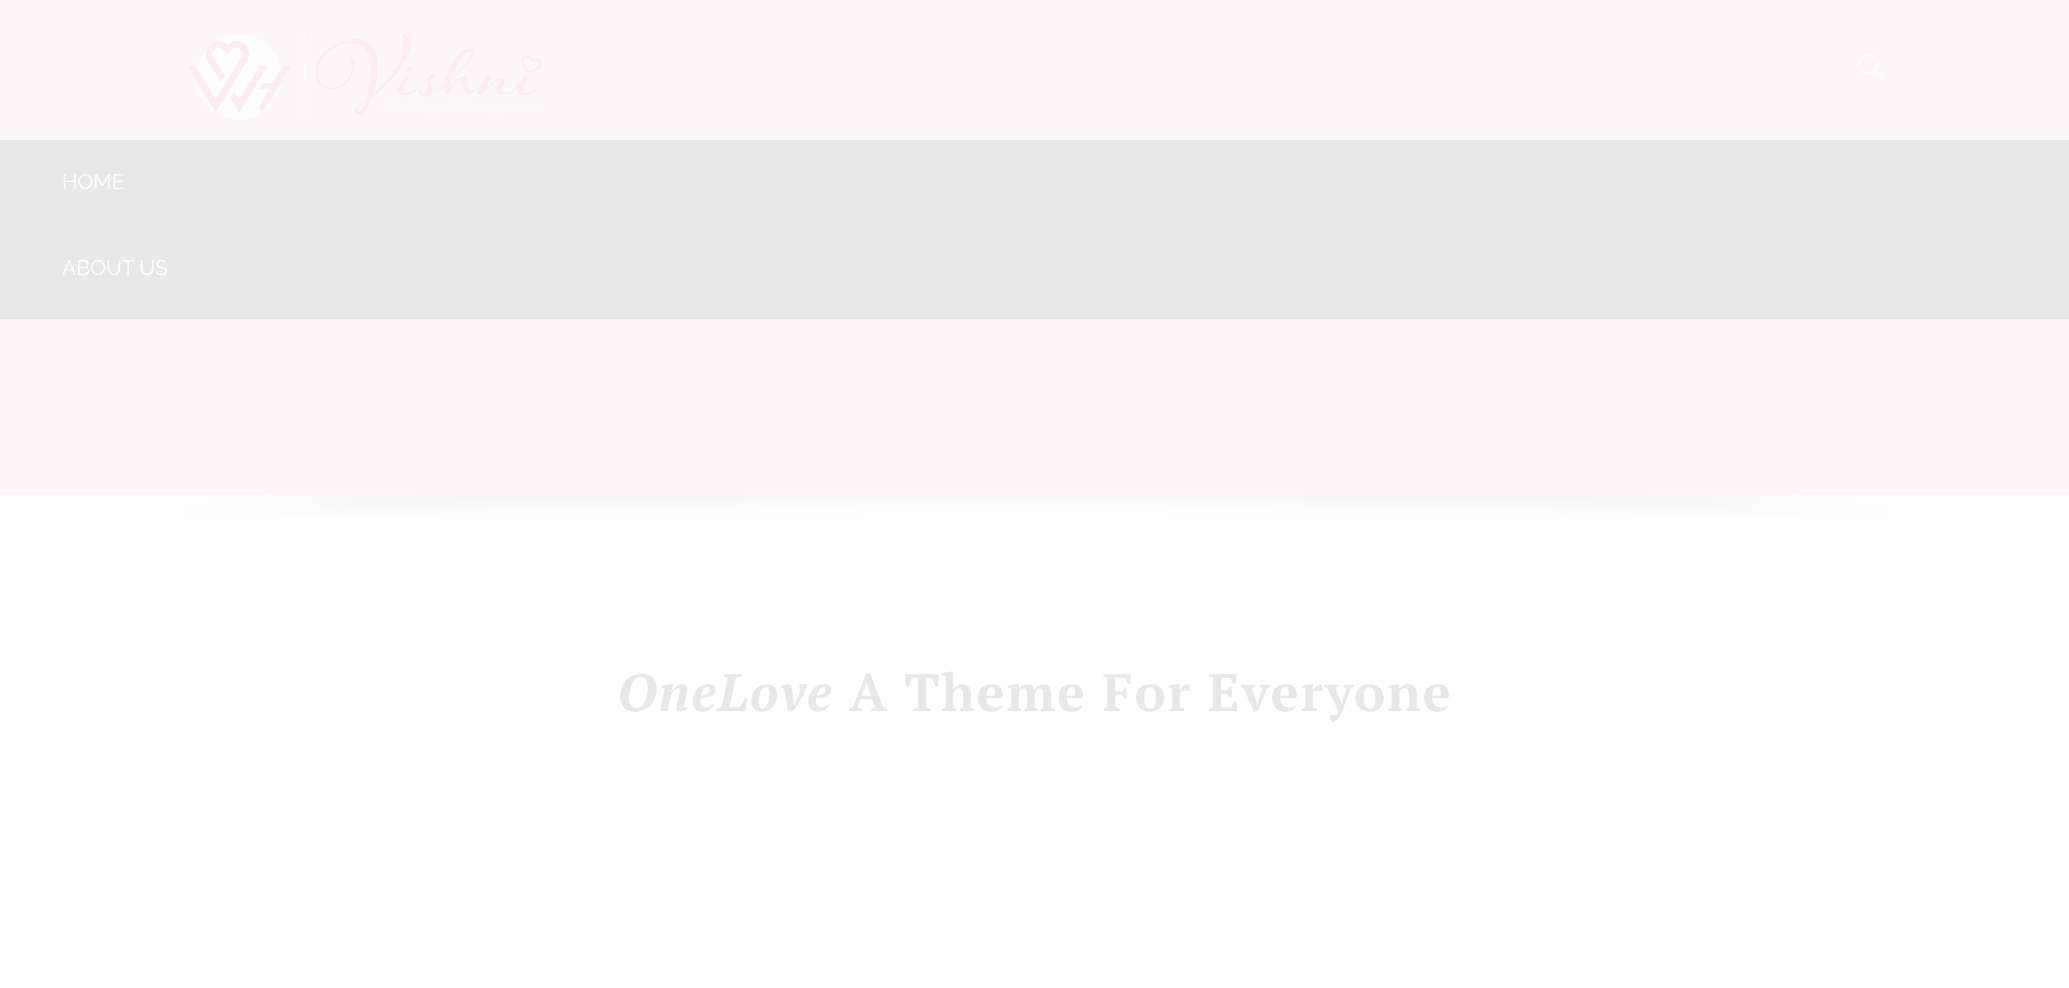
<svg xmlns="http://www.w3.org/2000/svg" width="2069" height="988">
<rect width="100%" height="100%" fill="#fff"/>
<rect width="2069" height="495" fill="#fdf7f7"/>
<image x="117" y="495" width="1836" height="29" href="media/1.png"/>
<image x="187" y="33" width="356" height="87" href="media/2.png"/>
<image x="1858" y="54" width="26" height="26" href="media/3.png"/>
<rect y="140" width="2069" height="179" fill="#e8e8e8"/>
<text x="62" y="189" style="font-family:Raleway;font-size:21px;fill:#fff">HOME</text>
<text x="62" y="275" style="font-family:Raleway;font-size:21px;fill:#fff">ABOUT US</text>
<text x="617" y="711" style="font-family:PT Serif;font-size:52.5px;font-weight:bold;font-style:italic;letter-spacing:1.75px;fill:#e8e8e8">OneLove</text>
<text x="849" y="711" style="font-family:PT Serif;font-size:52.5px;font-weight:bold;letter-spacing:1.75px;fill:#e8e8e8">A Theme For Everyone</text>
</svg>
